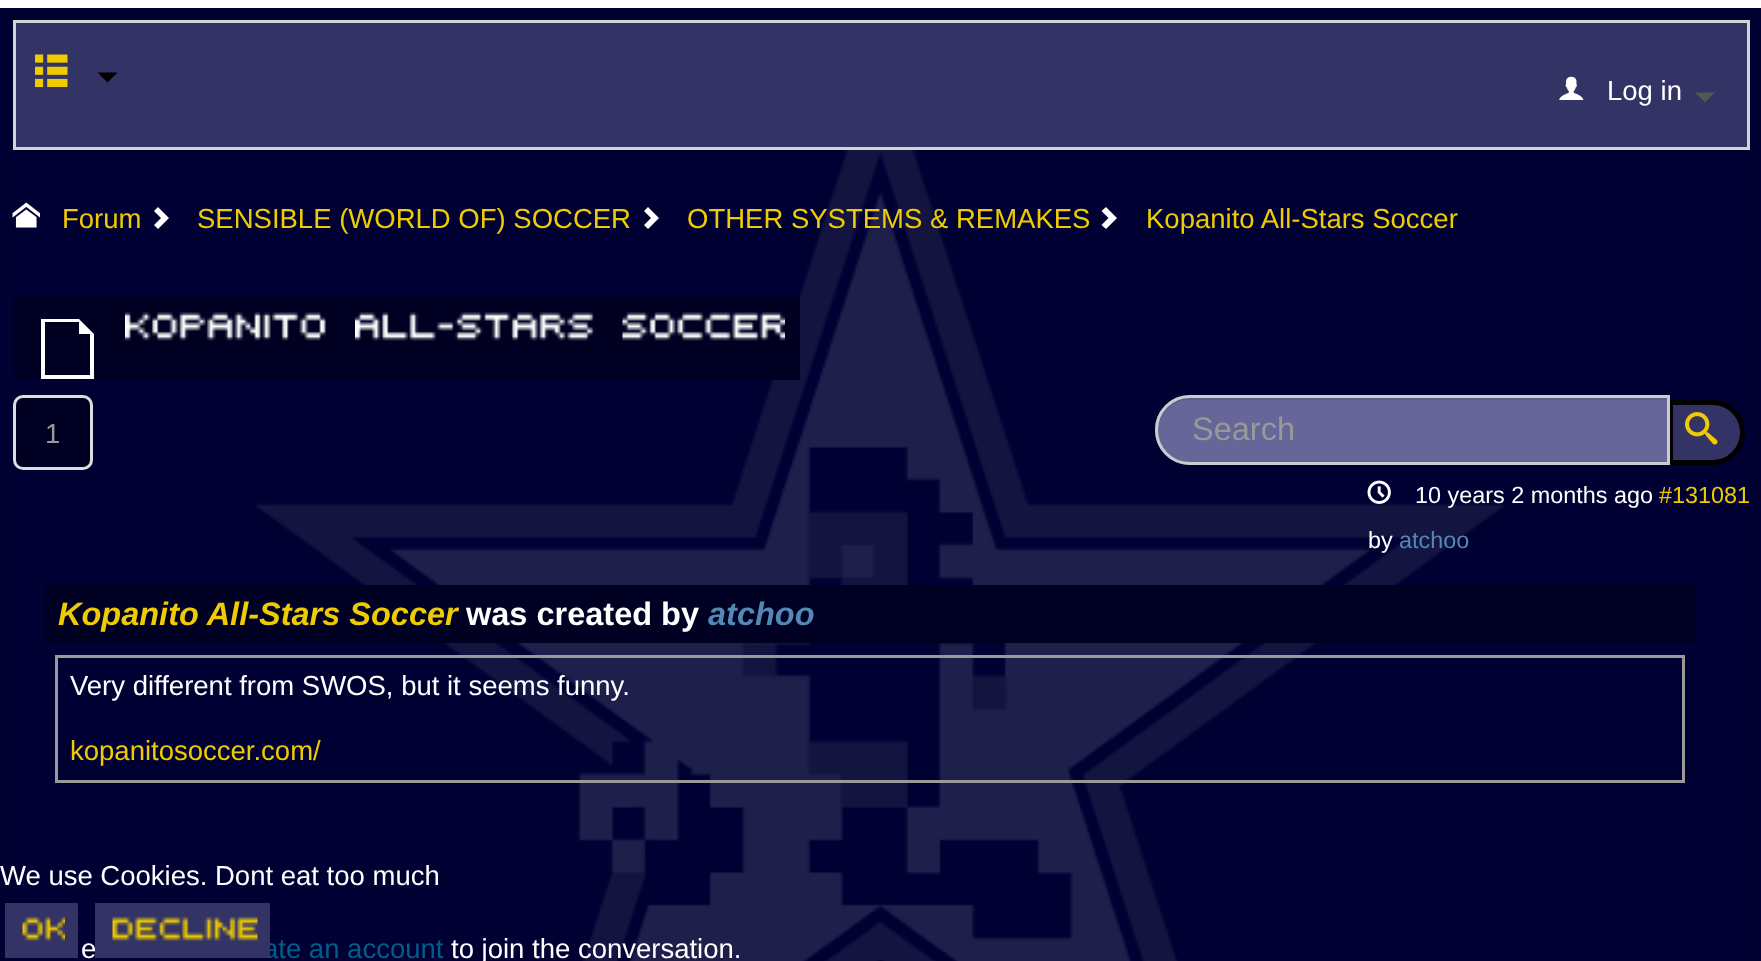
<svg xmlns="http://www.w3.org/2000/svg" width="1761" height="961">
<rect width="100%" height="100%" fill="#003"/>
<rect width="1761" height="8" fill="#fff"/>
<rect x="6.5" y="14.5" width="1750" height="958" rx="8.5" fill="none" stroke="#00002b" stroke-width="3"/>
<image x="255" y="150" width="1250" height="811" href="media/1.png"/>
<rect x="14.5" y="21.5" width="1734" height="127" fill="#336" stroke="#d4d4d4" stroke-width="3"/>
<image x="35" y="54" width="33" height="34" href="media/2.png"/>
<path d="M97.5 72.5h20l-10 10z" fill="#000"/>
<image x="1559" y="76" width="25" height="24" href="media/3.png"/>
<text x="1607" y="100" style="font-family:Liberation Sans;font-size:27.5px;fill:#fff">Log in</text>
<path d="M1695 92.5h20l-10 10z" fill="#555"/>
<image x="12" y="202" width="28" height="26" href="media/4.png"/>
<text x="62" y="228" style="font-family:Liberation Sans;font-size:27.5px;fill:#efcc01">Forum</text>
<path d="M158 207l11 11l-11 11l-4-4l7-7l-7-7z" fill="#fff"/>
<text x="197" y="228" style="font-family:Liberation Sans;font-size:27.5px;fill:#efcc01">SENSIBLE (WORLD OF) SOCCER</text>
<path d="M648 207l11 11l-11 11l-4-4l7-7l-7-7z" fill="#fff"/>
<text x="687" y="228" style="font-family:Liberation Sans;font-size:27.5px;fill:#efcc01">OTHER SYSTEMS &amp; REMAKES</text>
<path d="M1106 207l11 11l-11 11l-4.5-4l7-7l-7-7z" fill="#fff"/>
<text x="1146" y="228" style="font-family:Liberation Sans;font-size:27.5px;fill:#efcc01">Kopanito All-Stars Soccer</text>
<rect x="13" y="295" width="787" height="85" fill="#002"/>
<path d="M79 319l15 15v45h-53v-60zm11 56v-41h-11v-12h-34v53z" fill="#fff"/>
<image x="125" y="312" width="201" height="29" href="media/5.png"/>
<image x="355" y="312" width="239" height="29" href="media/6.png"/>
<image x="622" y="312" width="163" height="29" href="media/7.png"/>
<rect x="14.5" y="396.5" width="77" height="72" rx="8.5" fill="#002" stroke="#ddd" stroke-width="3"/>
<text x="45" y="443" style="font-family:Liberation Sans;font-size:27.5px;fill:#999">1</text>
<path d="M1670.5 402.5h42c16.5 0 30 13.5 30 30c0 16.5-13.5 30-30 30h-42z" fill="#336" stroke="#000" stroke-width="5"/>
<path d="M1190 395h480v70h-480c-19.5 0-35-15.5-35-35c0-19.5 15.5-35 35-35z" fill="#669"/>
<path d="M1190 400h478v-2h-478c-18 0-32 15-32 33c0-16 14-31 32-31z" fill="#5e5e8e"/>
<path d="M1190 396.5h478.5v67h-478.5c-18.5 0-33.5-15-33.5-33.5c0-18.5 15-33.5 33.5-33.5z" fill="none" stroke="#ccc" stroke-width="3"/>
<text x="1192" y="440" style="font-family:Liberation Sans;font-size:32.5px;fill:#999">Search</text>
<image x="1685" y="412" width="33" height="33" href="media/8.png"/>
<image x="1367" y="480" width="24" height="24" href="media/9.png"/>
<text x="1415" y="503" style="font-family:Liberation Sans;font-size:23.4px;fill:#fff">10 years 2 months ago</text>
<text x="1659" y="503" style="font-family:Liberation Sans;font-size:23.4px;fill:#efcc01">#131081</text>
<text x="1368" y="548" style="font-family:Liberation Sans;font-size:23.4px;fill:#fff">by</text>
<text x="1399" y="548" style="font-family:Liberation Sans;font-size:23.4px;fill:#5388b4">atchoo</text>
<rect x="45" y="585" width="1650" height="58" fill="#002"/>
<text x="58" y="625" style="font-family:Liberation Sans;font-size:32.5px;font-weight:bold;font-style:italic;fill:#efcc01">Kopanito All-Stars Soccer</text>
<text x="466" y="625" style="font-family:Liberation Sans;font-size:32.5px;font-weight:bold;fill:#fff">was created by</text>
<text x="708" y="625" style="font-family:Liberation Sans;font-size:32.5px;font-weight:bold;font-style:italic;fill:#5388b4">atchoo</text>
<rect x="56.5" y="656.5" width="1627" height="125" fill="none" stroke="#999" stroke-width="3"/>
<text x="70" y="695" style="font-family:Liberation Sans;font-size:27.5px;fill:#fff">Very different from SWOS, but it seems funny.</text>
<text x="70" y="760" style="font-family:Liberation Sans;font-size:27.5px;fill:#efcc01">kopanitosoccer.com/</text>
<text x="81" y="958" style="font-family:Liberation Sans;font-size:27.5px;fill:#fff">e</text>
<text x="263" y="958" style="font-family:Liberation Sans;font-size:27.5px;fill:#005e8d">ate an account</text>
<text x="451" y="958" style="font-family:Liberation Sans;font-size:27.5px;fill:#fff">to join the conversation.</text>
<text x="0" y="885" style="font-family:Liberation Sans;font-size:27.5px;fill:#fff">We use Cookies. Dont eat too much</text>
<rect x="5" y="903" width="73" height="55" fill="#336"/>
<image x="22" y="916" width="43" height="25" href="media/10.png"/>
<rect x="95" y="903" width="175" height="55" fill="#336"/>
<image x="112" y="916" width="146" height="25" href="media/11.png"/>
</svg>
